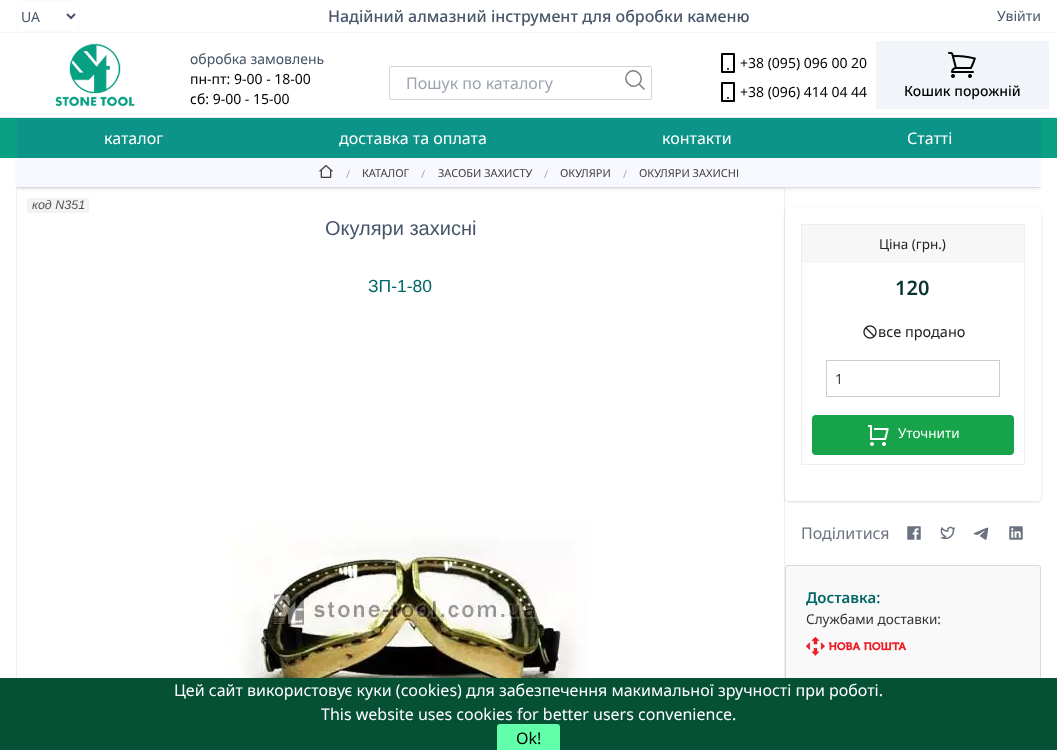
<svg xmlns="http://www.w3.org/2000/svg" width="1057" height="750">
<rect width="100%" height="100%" fill="#fff"/>
<rect y="32" width="1057" height="1" fill="#f1f5f9"/>
<rect x="16.5" y="0.5" width="63" height="31" rx="3.5" fill="none" stroke="#f8fafc"/>
<path d="M67 14l4 4l4-4" fill="none" stroke="#475569" stroke-width="2"/>
<text x="21" y="22" style="font-family:Noto Sans;font-size:14px;fill:#475569">UA</text>
<text x="328" y="22" style="font-family:Noto Sans;font-size:16px;font-weight:500;fill:#475569">Надійний алмазний інструмент для обробки каменю</text>
<text x="997" y="21" style="font-family:Noto Sans;font-size:14px;fill:#475569">Увійти</text>
<rect y="117" width="1057" height="1" fill="#e5e7eb"/>
<image x="55" y="43" width="80" height="64" href="media/1.png"/>
<text x="190" y="64" style="font-family:Noto Sans;font-size:14px;fill:#475569">обробка замовлень</text>
<text x="190" y="84" style="font-family:Noto Sans;font-size:14px;fill:#000">пн-пт: 9-00 - 18-00</text>
<text x="190" y="104" style="font-family:Noto Sans;font-size:14px;fill:#000">сб: 9-00 - 15-00</text>
<rect x="389.5" y="66.5" width="262" height="33" rx="1.5" fill="none" stroke="#d1d5db"/>
<text x="406" y="89" style="font-family:Noto Sans;font-size:16px;fill:#9ca3af">Пошук по каталогу</text>
<path d="M644 89l-5-5m0 0c7-7-4-18-11-11c-7 7 4 18 11 11z" fill="none" stroke="#808080" stroke-width="1.5" stroke-linecap="round" stroke-linejoin="round"/>
<image x="721" y="53" width="14" height="20" href="media/2.png"/>
<text x="740" y="68" style="font-family:Noto Sans;font-size:14px;fill:#000">+38 (095) 096 00 20</text>
<image x="721" y="82" width="14" height="20" href="media/2.png"/>
<text x="740" y="97" style="font-family:Noto Sans;font-size:14px;fill:#000">+38 (096) 414 04 44</text>
<rect x="876" y="41" width="173" height="68" fill="#f1f5f9"/>
<image x="948" y="52" width="28" height="26" href="media/3.png"/>
<text x="904" y="96" style="font-family:Noto Sans;font-size:14px;font-weight:500;fill:#000">Кошик порожній</text>
<rect y="118" width="1057" height="40" fill="#07a083"/>
<rect x="16" y="188" width="769" height="1" fill="#eee"/>
<rect x="784" y="188" width="1" height="490" fill="#eee"/>
<rect x="16" y="188" width="1" height="490" fill="#eee"/>
<rect x="18" y="162" width="1021" height="26" fill="#ddd" filter="blur(2px)"/>
<rect x="17" y="118" width="1024" height="40" fill="#0d9488"/>
<text x="104" y="144" style="font-family:Noto Sans;font-size:16px;fill:#fff">каталог</text>
<text x="339" y="144" style="font-family:Noto Sans;font-size:16px;fill:#fff">доставка та оплата</text>
<text x="662" y="144" style="font-family:Noto Sans;font-size:16px;fill:#fff">контакти</text>
<text x="907" y="144" style="font-family:Noto Sans;font-size:16px;fill:#fff">Статті</text>
<rect x="16" y="158" width="1025" height="29" fill="#f8f8ff"/>
<rect x="16" y="187" width="1025" height="1" fill="#ddd"/>
<image x="318" y="165" width="16" height="13" href="media/4.png"/>
<text x="346" y="178" style="font-family:Noto Sans;font-size:11px;fill:#aaa">/</text>
<text x="362" y="177" style="font-family:Noto Sans;font-size:11px;fill:#404040">КАТАЛОГ</text>
<text x="421" y="178" style="font-family:Noto Sans;font-size:11px;fill:#aaa">/</text>
<text x="438" y="177" style="font-family:Noto Sans;font-size:11px;fill:#404040">ЗАСОБИ ЗАХИСТУ</text>
<text x="544" y="178" style="font-family:Noto Sans;font-size:11px;fill:#aaa">/</text>
<text x="560" y="177" style="font-family:Noto Sans;font-size:11px;fill:#404040">ОКУЛЯРИ</text>
<text x="623" y="178" style="font-family:Noto Sans;font-size:11px;fill:#aaa">/</text>
<text x="639" y="177" style="font-family:Noto Sans;font-size:11px;fill:#404040">ОКУЛЯРИ ЗАХИСНІ</text>
<rect x="27" y="198" width="62" height="15" fill="#f3f3f3"/>
<text x="32" y="209" style="font-family:Liberation Sans;font-size:12.5px;font-style:italic;fill:#555">код N351</text>
<text x="325" y="235" style="font-family:Liberation Sans;font-size:20px;fill:#475569">Окуляри захисні</text>
<text x="368" y="292" style="font-family:Liberation Sans;font-size:17.5px;fill:#066">ЗП-1-80</text>
<image x="228" y="523" width="360" height="155" href="media/5.png"/>
<rect x="786" y="210" width="254" height="291" rx="3" fill="#0000001a" filter="blur(1px)"/>
<rect x="785" y="209" width="256" height="293" rx="4" fill="#0000001a" filter="blur(1.5px)"/>
<rect x="785" y="208" width="256" height="293" rx="4" fill="#fff"/>
<rect x="801" y="224" width="224" height="1" fill="#eee"/>
<rect x="1024" y="224" width="1" height="241" fill="#eee"/>
<rect x="801" y="464" width="224" height="1" fill="#eee"/>
<rect x="801" y="224" width="1" height="241" fill="#eee"/>
<rect x="802" y="225" width="222" height="38" fill="#f7f7f7"/>
<text x="879" y="249" style="font-family:Noto Sans;font-size:13.5px;fill:#222">Ціна (грн.)</text>
<text x="895" y="295" style="font-family:Noto Sans;font-size:20px;font-weight:600;fill:#0b3530">120</text>
<image x="863" y="325" width="14" height="14" href="media/6.png"/>
<text x="878" y="337" style="font-family:Noto Sans;font-size:14.5px;fill:#222">все продано</text>
<rect x="826.5" y="360.5" width="173" height="36" fill="none" stroke="#ccc"/>
<text x="835" y="384" style="font-family:Noto Sans;font-size:14px;fill:#404040">1</text>
<rect x="812" y="415" width="202" height="40" rx="4" fill="#16a34a"/>
<image x="868" y="425" width="21" height="21" href="media/7.png"/>
<text x="898" y="438" style="font-family:Noto Sans;font-size:13.5px;fill:#fff">Уточнити</text>
<text x="801" y="539" style="font-family:Noto Sans;font-size:16px;fill:#6b7280">Поділитися</text>
<image x="907" y="526" width="14" height="14" href="media/8.png"/>
<image x="940" y="526" width="16" height="14" href="media/9.png"/>
<image x="973" y="527" width="16" height="13" href="media/10.png"/>
<image x="1009" y="526" width="14" height="14" href="media/11.png"/>
<rect x="785.5" y="565.5" width="255" height="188" rx="2.5" fill="#f9f9f9" stroke="#d8d8d8"/>
<text x="806" y="603" style="font-family:Noto Sans;font-size:15px;font-weight:600;fill:#066">Доставка:</text>
<text x="806" y="624" style="font-family:Noto Sans;font-size:13.5px;fill:#333">Службами доставки:</text>
<image x="806" y="637" width="100" height="19" href="media/12.png"/>
<rect y="678" width="1057" height="72" fill="#065135"/>
<text x="174" y="696" style="font-family:Noto Sans;font-size:16px;fill:#fff">Цей сайт використовує куки (cookies) для забезпечення макимальної зручності при роботі.</text>
<text x="321" y="720" style="font-family:Noto Sans;font-size:16px;fill:#fff">This website uses cookies for better users convenience.</text>
<rect x="497" y="724" width="63" height="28" rx="3" fill="#62ffaa"/>
<text x="516" y="744" style="font-family:Noto Sans;font-size:16px;fill:#000">Ok!</text>
</svg>
